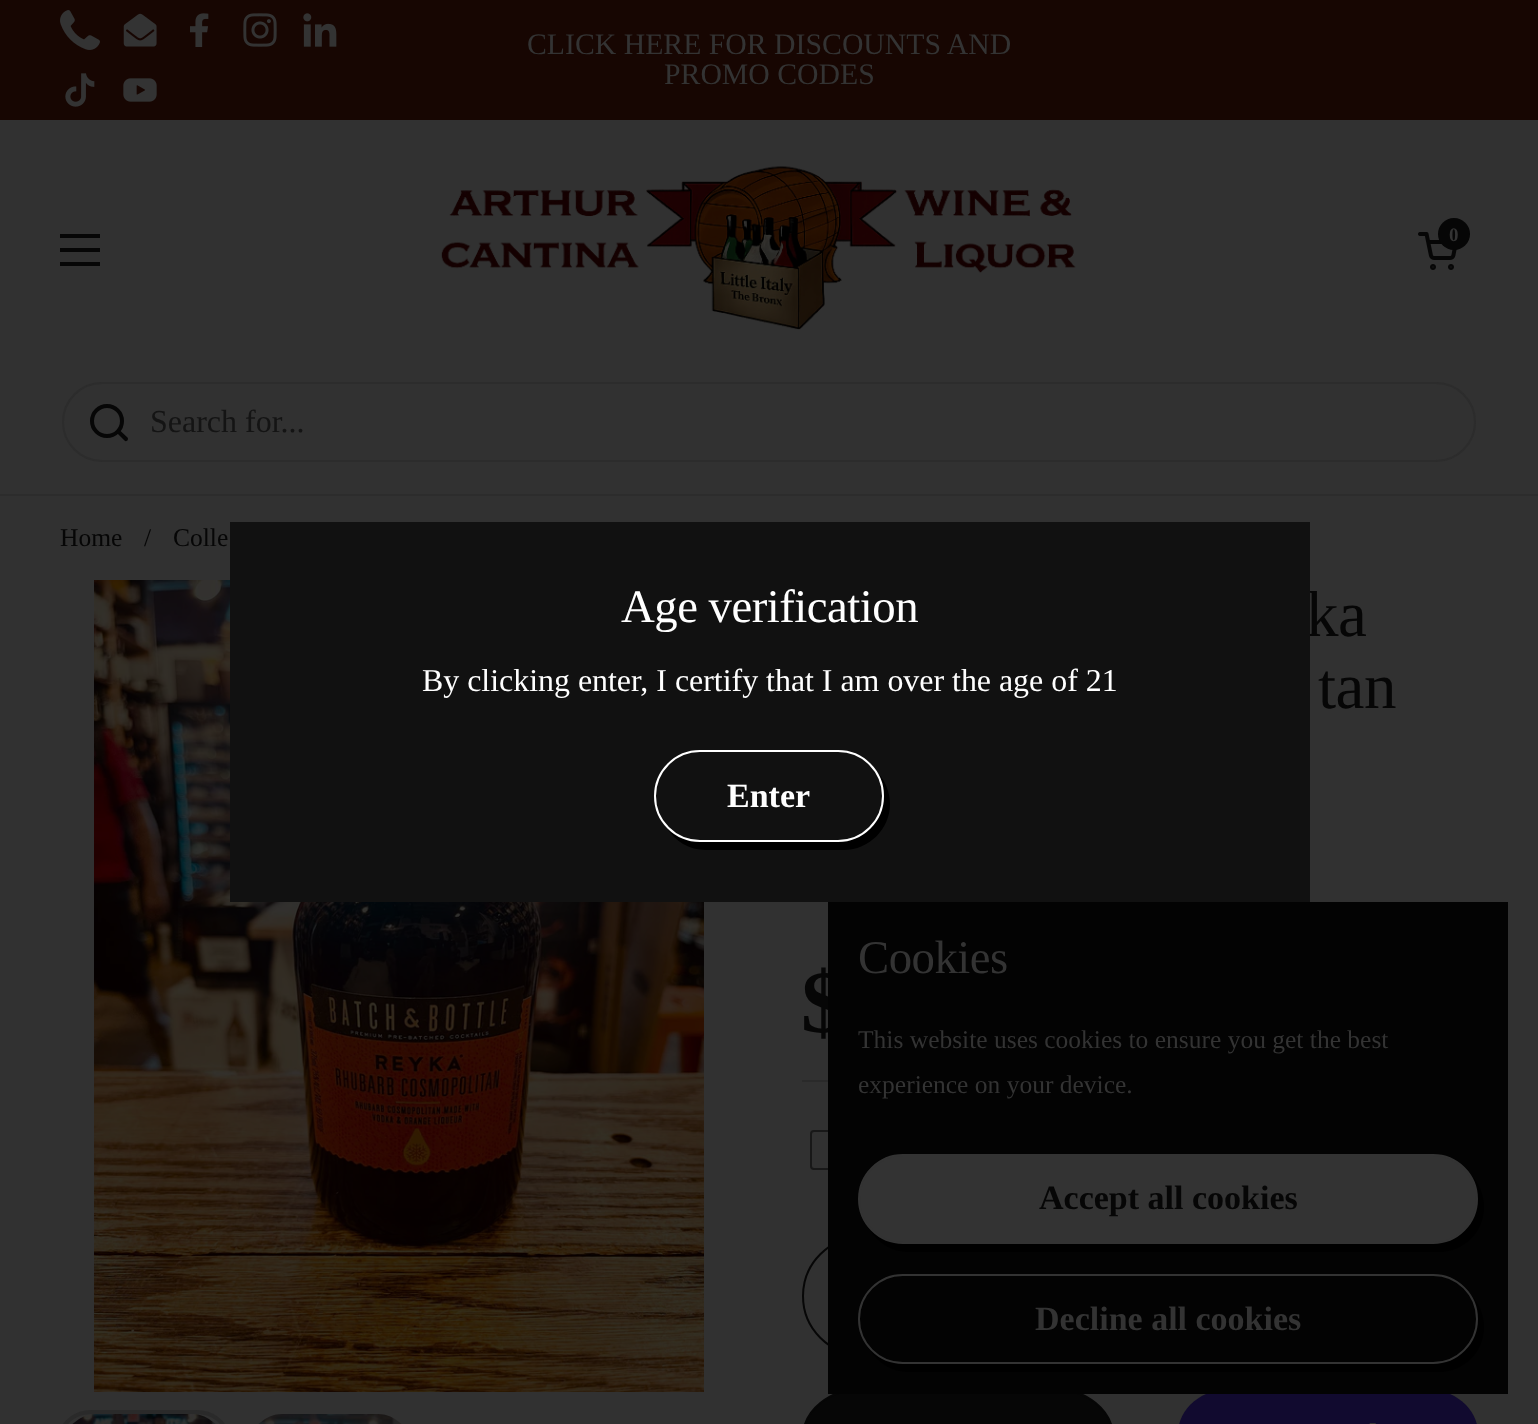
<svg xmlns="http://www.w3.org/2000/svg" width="1538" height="1424">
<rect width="100%" height="100%" fill="#313131"/>
<rect width="1538" height="120" fill="#170602"/>
<image x="60" y="10" width="40" height="40" href="media/1.png"/>
<image x="123" y="13" width="34" height="34" href="media/2.png"/>
<image x="190" y="13" width="19" height="34" href="media/3.png"/>
<image x="243" y="13" width="34" height="34" href="media/4.png"/>
<image x="303" y="13" width="34" height="34" href="media/5.png"/>
<image x="65" y="73" width="30" height="34" href="media/6.png"/>
<image x="123" y="78" width="34" height="24" href="media/7.png"/>
<text x="527" y="54" style="font-family:Liberation Serif;font-size:29.75px;fill:#333">CLICK HERE FOR DISCOUNTS AND</text>
<text x="664" y="84" style="font-family:Liberation Serif;font-size:29.75px;fill:#333">PROMO CODES</text>
<rect x="60" y="234" width="40" height="4" fill="#060606"/>
<rect x="60" y="248" width="40" height="4" fill="#060606"/>
<rect x="60" y="262" width="40" height="4" fill="#060606"/>
<image x="441" y="166" width="635" height="164" href="media/8.png"/>
<image x="1418" y="232" width="39" height="38" href="media/9.png"/>
<circle cx="1454" cy="234" r="16" fill="#060606"/>
<text x="1449" y="241" style="font-family:Liberation Serif;font-size:19px;font-weight:bold;fill:#333">0</text>
<rect y="494" width="1538" height="2" fill="#2c2c2c"/>
<rect x="63" y="383" width="1412" height="78" rx="39" fill="none" stroke="#2c2c2c" stroke-width="2"/>
<circle cx="107" cy="421" r="15" fill="none" stroke="#060606" stroke-width="4"/>
<path d="M120 430.5l-1-1.5l-3 3l1.5 1.5zm4.5 10c2 2 4.5-1 3-3zm-7-7l7 7l3-3l-7.5-7z" fill="#060606"/>
<text x="150" y="432" style="font-family:Liberation Serif;font-size:32px;fill:#141414">Search for...</text>
<text x="60" y="546" style="font-family:Liberation Serif;font-size:25.5px;fill:#060606">Home</text>
<text x="144" y="546" style="font-family:Liberation Serif;font-size:25.5px;fill:#060606">/</text>
<text x="173" y="546" style="font-family:Liberation Serif;font-size:25.5px;fill:#060606">Colle</text>
<image x="94" y="580" width="610" height="812" href="media/10.png"/>
<rect x="62" y="1412" width="164" height="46" rx="30" fill="none" stroke="#2a2a2a" stroke-width="4"/>
<image x="72" y="1414" width="144" height="10" href="media/11.png"/>
<image x="258" y="1414" width="144" height="10" href="media/12.png"/>
<text x="1306" y="636" style="font-family:Liberation Serif;font-size:65px;letter-spacing:-0.5px;fill:#060606">ka</text>
<text x="1318" y="708" style="font-family:Liberation Serif;font-size:65px;letter-spacing:-0.5px;fill:#060606">tan</text>
<text x="801" y="1032" style="font-family:Liberation Serif;font-size:89px;font-weight:bold;letter-spacing:-1px;fill:#060606">$</text>
<rect x="802" y="1080" width="26" height="2" fill="#2a2a2a"/>
<rect x="811" y="1131" width="38" height="38" rx="3" fill="none" stroke="#181818" stroke-width="2"/>
<circle cx="862" cy="1296" r="59" fill="none" stroke="#060606" stroke-width="2"/>
<path d="M817 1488c11 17 30 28 51 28h192c33 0 60-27 60-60c0-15-6-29-15-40c6 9 9 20 9 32c0 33-27 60-60 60h-192c-18 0-34-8-45-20z" fill="#000"/>
<rect x="803" y="1389" width="310" height="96" rx="59" fill="#060606" stroke="#060606" stroke-width="2"/>
<rect x="1178" y="1388" width="300" height="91" rx="55" fill="#110a2f"/>
<image x="1369" y="1423" width="7" height="1" href="media/13.png"/>
<rect x="230" y="522" width="1080" height="380" fill="#111"/>
<text x="621" y="622" style="font-family:Liberation Serif;font-size:46.75px;letter-spacing:-0.5px;fill:#fff">Age verification</text>
<text x="422" y="691" style="font-family:Liberation Serif;font-size:31.9px;fill:#fff">By clicking enter, I certify that I am over the age of 21</text>
<path d="M667 828c8 13 22 22 39 22h138c25 0 46-21 46-46c0-12-5-24-13-32c4 7 7 15 7 24c0 26-21 46-46 46h-138c-13 0-25-5-33-14z" fill="#000"/>
<rect x="655" y="751" width="228" height="90" rx="45" fill="none" stroke="#fff" stroke-width="2"/>
<text x="727" y="807" style="font-family:Liberation Serif;font-size:34px;font-weight:bold;fill:#fff">Enter</text>
<rect x="828" y="902" width="680" height="492" fill="#030303"/>
<text x="858" y="973" style="font-family:Liberation Serif;font-size:46.75px;letter-spacing:-0.5px;fill:#333">Cookies</text>
<text x="858" y="1048" style="font-family:Liberation Serif;font-size:25.5px;fill:#333">This website uses cookies to ensure you get the best</text>
<text x="858" y="1093" style="font-family:Liberation Serif;font-size:25.5px;fill:#333">experience on your device.</text>
<path d="M870 1230c8 13 22 22 39 22h530c25 0 45-20 45-45c0-12-5-23-12-31c4 7 6 15 6 23c0 25-20 45-45 45h-530c-13 0-25-5-33-14z" fill="#000"/>
<rect x="859" y="1155" width="618" height="88" rx="44" fill="#333" stroke="#333" stroke-width="2"/>
<text x="1039" y="1209" style="font-family:Liberation Serif;font-size:34px;font-weight:bold;fill:#060606">Accept all cookies</text>
<path d="M870 1350c8 13 22 22 39 22h530c25 0 45-20 45-45c0-12-5-23-12-31c4 7 6 15 6 23c0 25-20 45-45 45h-530c-13 0-25-5-33-14z" fill="#000"/>
<rect x="859" y="1275" width="618" height="88" rx="44" fill="none" stroke="#333" stroke-width="2"/>
<text x="1035" y="1330" style="font-family:Liberation Serif;font-size:34px;font-weight:bold;fill:#333">Decline all cookies</text>
</svg>
